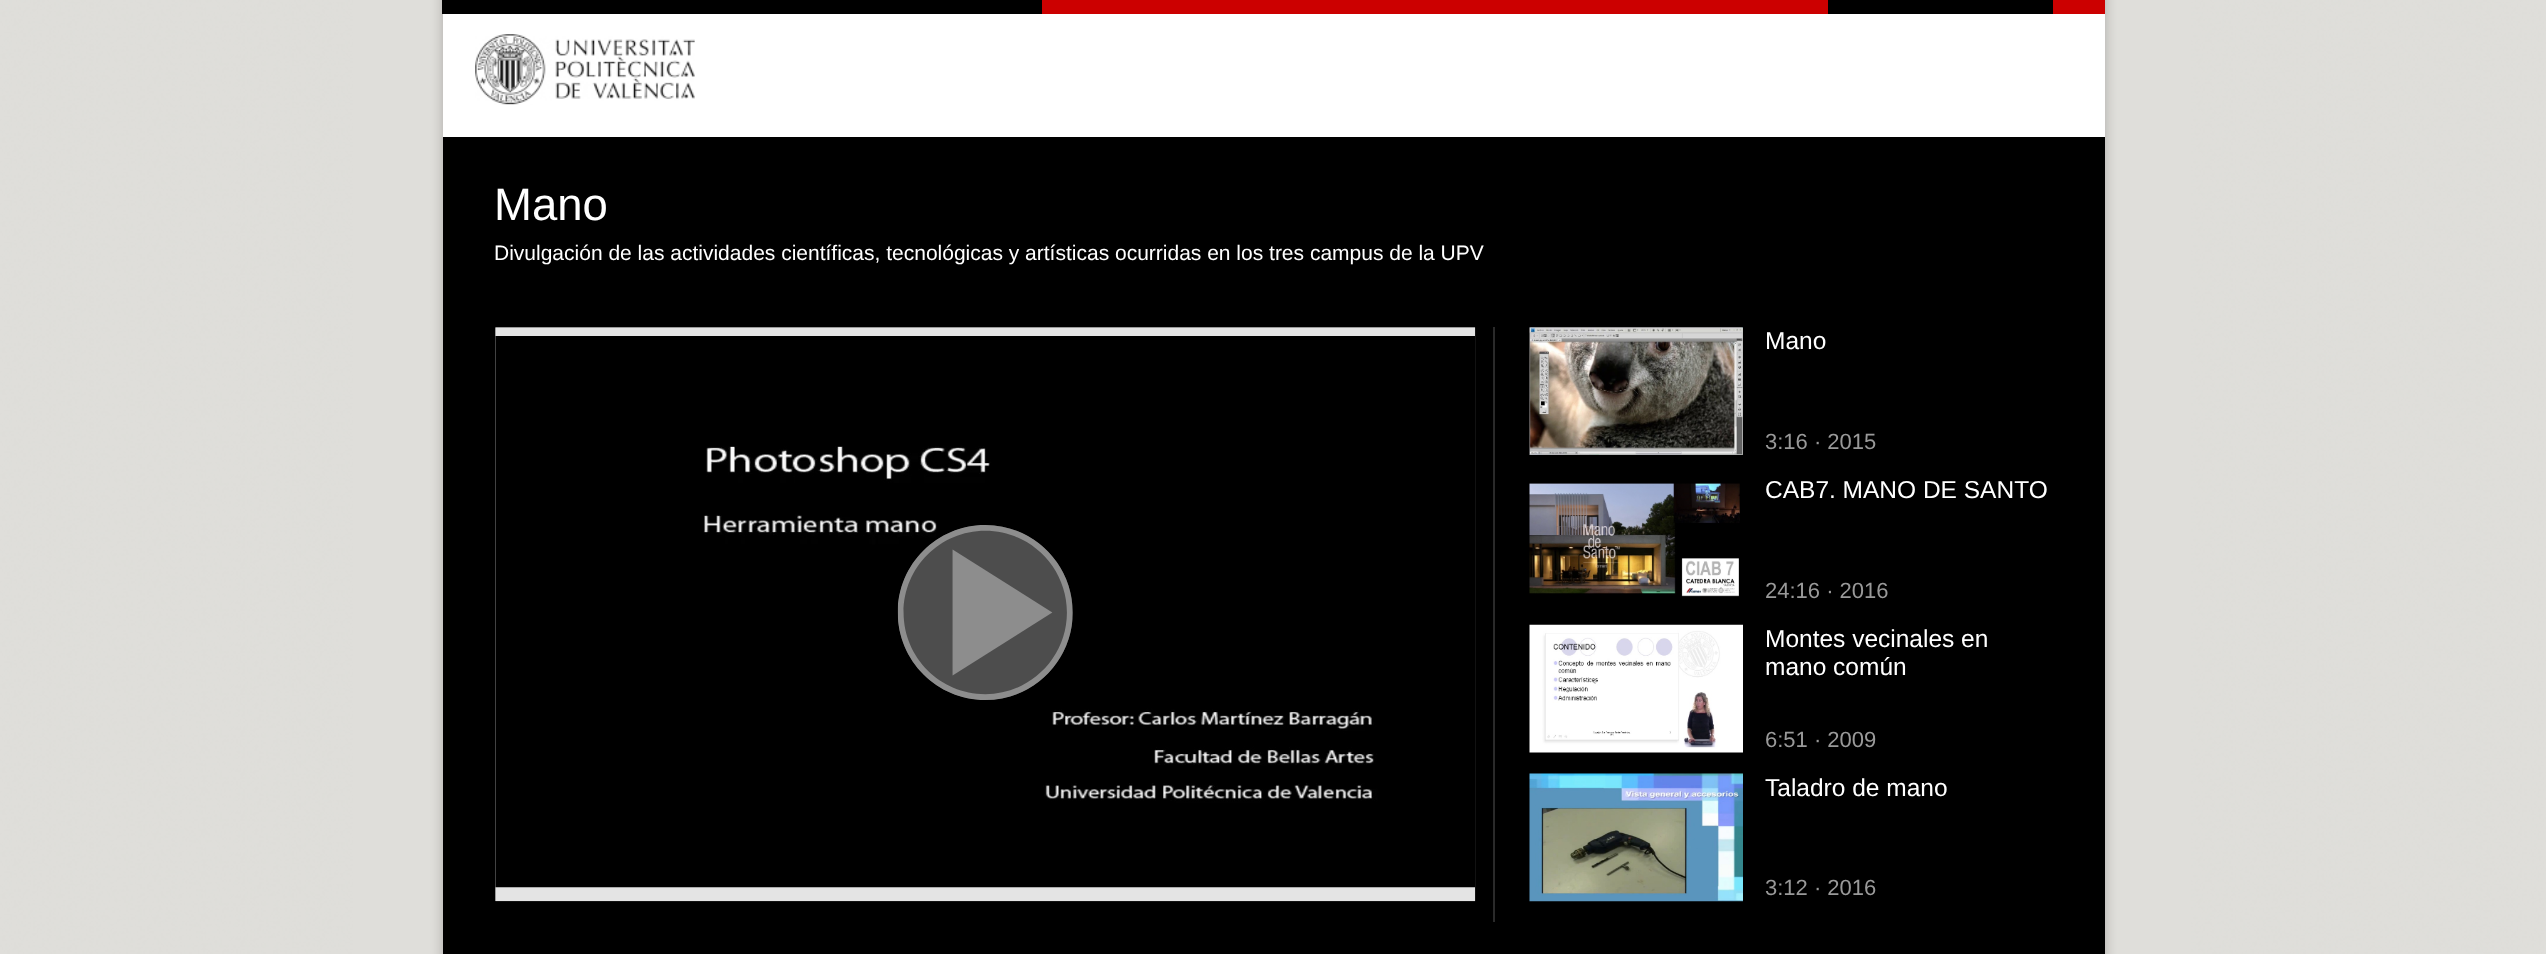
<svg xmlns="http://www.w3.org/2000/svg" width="2546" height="954">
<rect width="100%" height="100%" fill="#fff"/>
<image x="0" y="0" width="2546" height="954" href="media/1.png"/>
<rect x="443" y="14" width="1662" height="123" fill="#fff"/>
<rect x="1042" width="1063" height="14" fill="#c00"/>
<rect x="442" width="600" height="14" fill="#000"/>
<rect x="1828" width="225" height="14" fill="#000"/>
<image x="475" y="34" width="220" height="71" href="media/2.png"/>
<rect x="443" y="137" width="1662" height="817" fill="#000"/>
<text x="494" y="220" style="font-family:Liberation Sans;font-size:45.5px;fill:#fff">Mano</text>
<text x="494" y="260" style="font-family:Liberation Sans;font-size:21px;fill:#fff">Divulgación de las actividades científicas, tecnológicas y artísticas ocurridas en los tres campus de la UPV</text>
<image x="495" y="327" width="981" height="575" href="media/3.png"/>
<rect x="1493" y="327" width="2" height="595" fill="#2a2a2a"/>
<image x="1529" y="327" width="214" height="128" href="media/4.png"/>
<text x="1765" y="349" style="font-family:Liberation Sans;font-size:24.5px;fill:#fff">Mano</text>
<text x="1765" y="449" style="font-family:Liberation Sans;font-size:22px;fill:#999">3:16 · 2015</text>
<image x="1529" y="483" width="211" height="114" href="media/5.png"/>
<text x="1765" y="498" style="font-family:Liberation Sans;font-size:24.5px;fill:#fff">CAB7. MANO DE SANTO</text>
<text x="1765" y="598" style="font-family:Liberation Sans;font-size:22px;fill:#999">24:16 · 2016</text>
<image x="1529" y="624" width="214" height="129" href="media/6.png"/>
<text x="1765" y="647" style="font-family:Liberation Sans;font-size:24.5px;fill:#fff">Montes vecinales en</text>
<text x="1765" y="675" style="font-family:Liberation Sans;font-size:24.5px;fill:#fff">mano común</text>
<text x="1765" y="747" style="font-family:Liberation Sans;font-size:22px;fill:#999">6:51 · 2009</text>
<image x="1529" y="773" width="214" height="129" href="media/7.png"/>
<text x="1765" y="796" style="font-family:Liberation Sans;font-size:24.5px;fill:#fff">Taladro de mano</text>
<text x="1765" y="895" style="font-family:Liberation Sans;font-size:22px;fill:#999">3:12 · 2016</text>
</svg>
